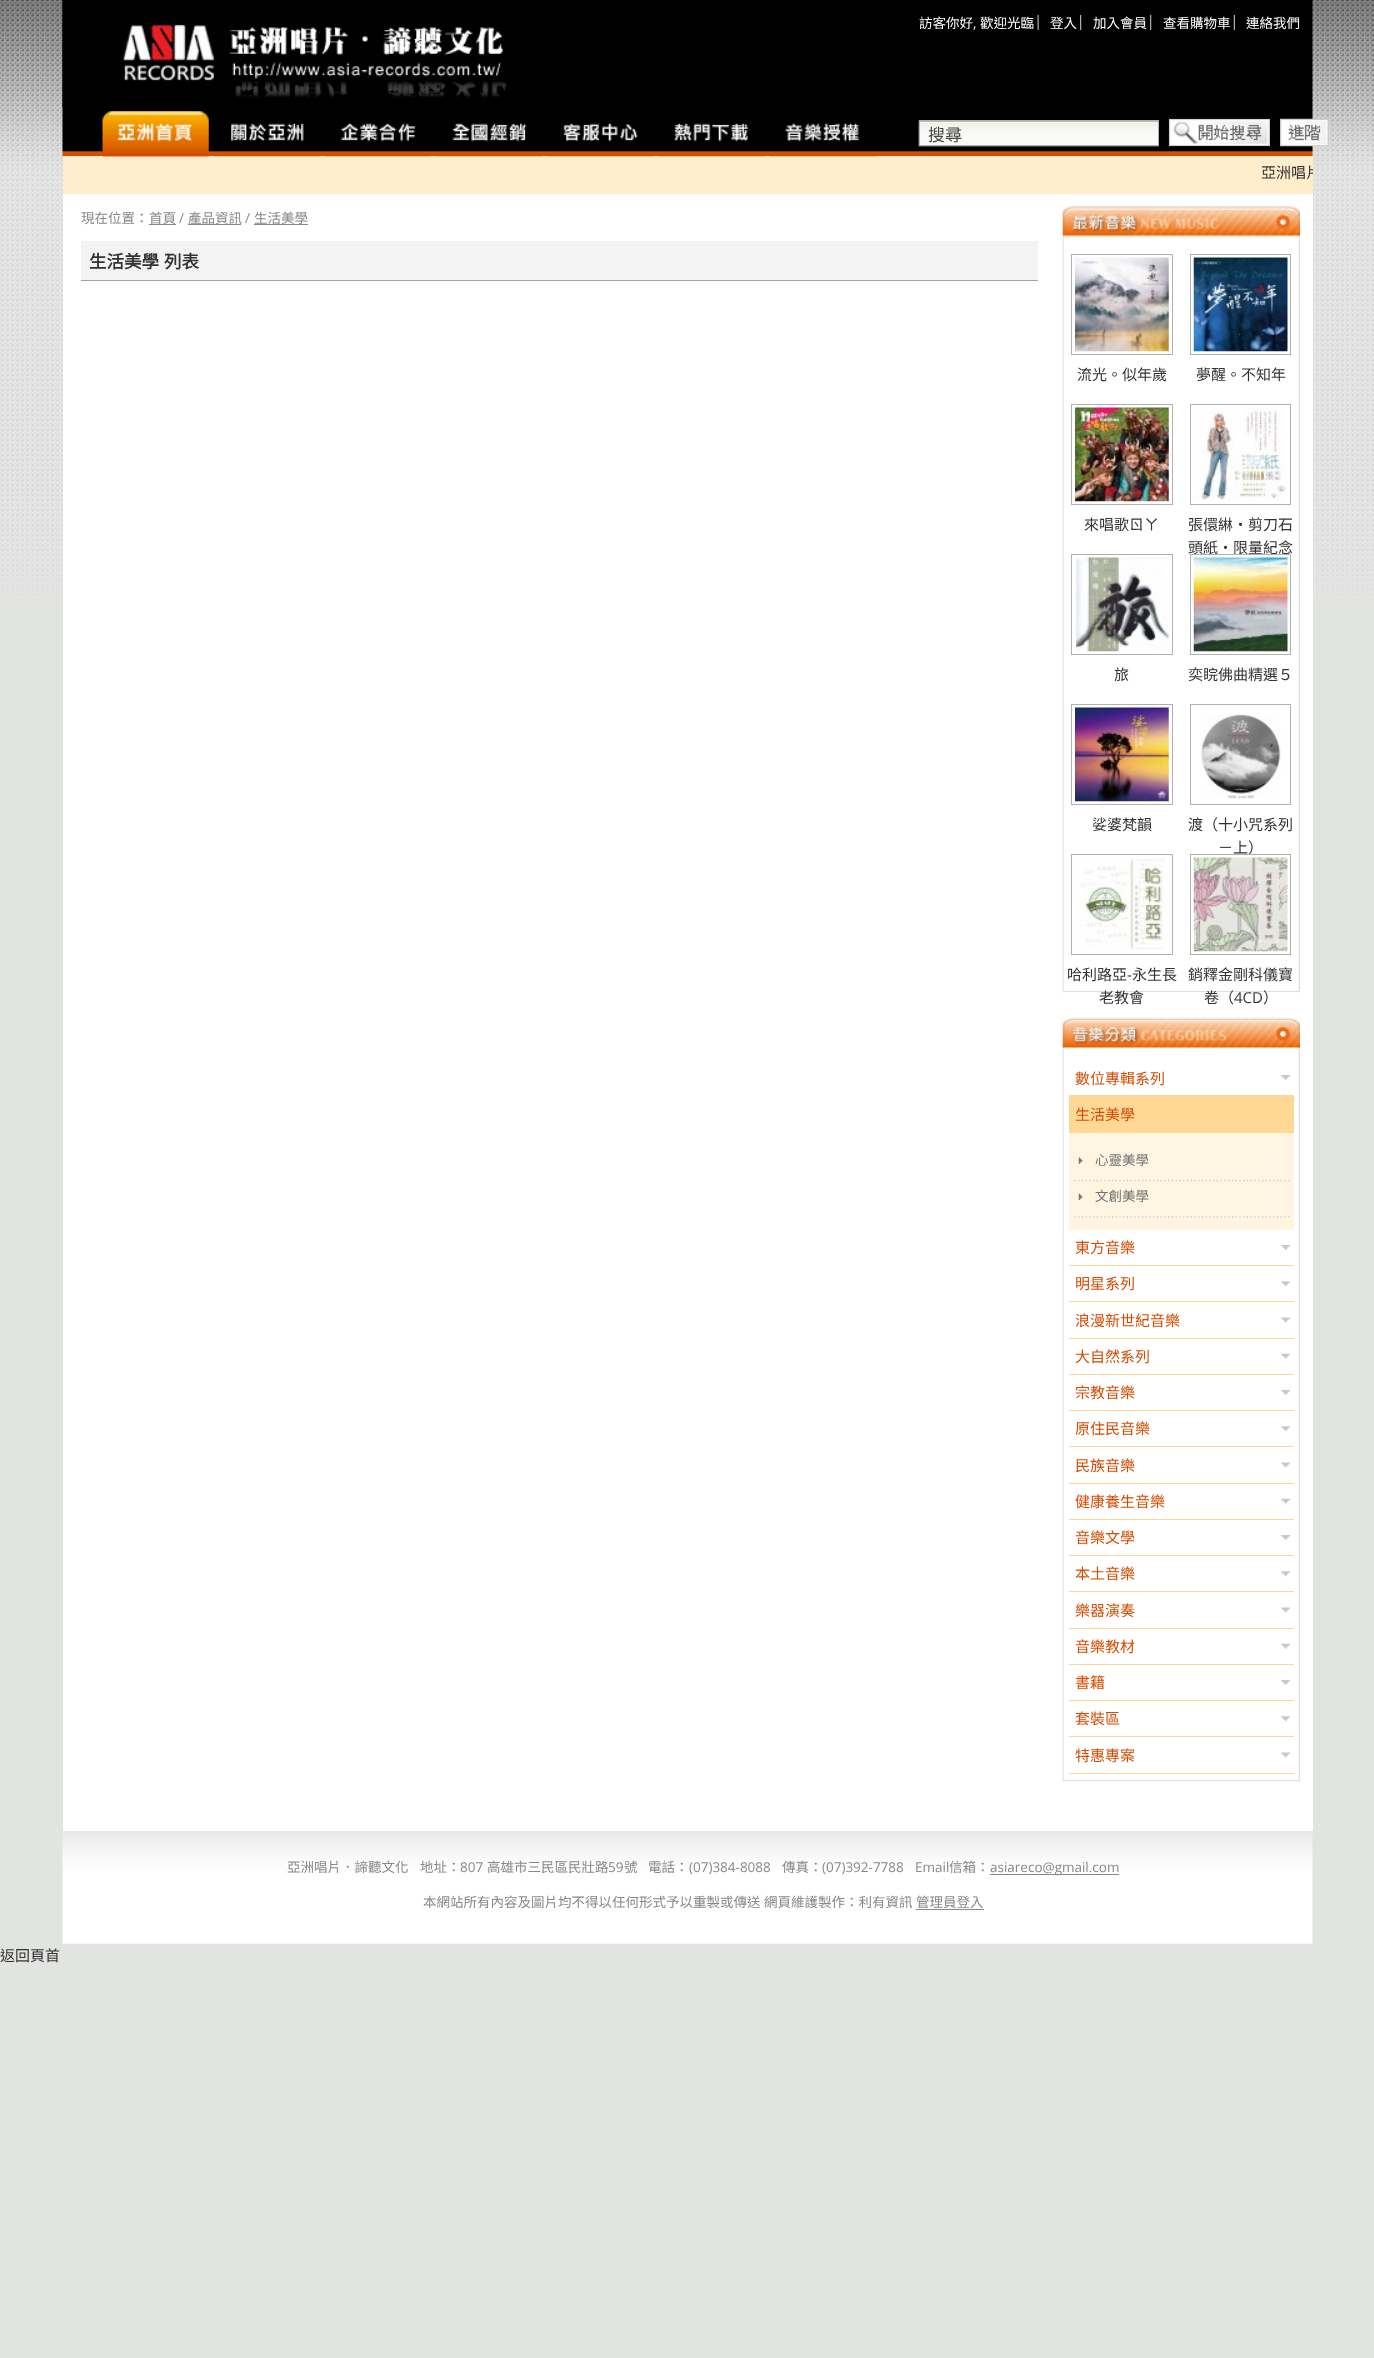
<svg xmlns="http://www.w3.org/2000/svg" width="1374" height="2358">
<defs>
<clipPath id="clip1"><rect x="63" y="156" width="1250" height="33"/></clipPath>
</defs>
<rect width="100%" height="100%" fill="#e2e4e1"/>
<image x="0" y="0" width="1374" height="601" href="media/1.png"/>
<image x="62" y="0" width="1251" height="157" href="media/2.png"/>
<image x="62" y="0" width="445" height="108" href="media/3.png"/>
<text x="919" y="28" style="font-family:Noto Sans CJK TC;font-size:13.5px;fill:#fff">訪客你好</text>
<text x="973" y="28" style="font-family:Open Sans;font-size:13.5px;fill:#fff">,</text>
<text x="980" y="28" style="font-family:Noto Sans CJK TC;font-size:13.5px;fill:#fff">歡迎光臨</text>
<image x="1037" y="15" width="2" height="15" href="media/4.png"/>
<text x="1050" y="28" style="font-family:Noto Sans CJK TC;font-size:13.5px;fill:#fff">登入</text>
<image x="1080" y="15" width="2" height="15" href="media/5.png"/>
<text x="1093" y="28" style="font-family:Noto Sans CJK TC;font-size:13.5px;fill:#fff">加入會員</text>
<image x="1150" y="15" width="2" height="15" href="media/5.png"/>
<text x="1163" y="28" style="font-family:Noto Sans CJK TC;font-size:13.5px;fill:#fff">查看購物車</text>
<image x="1233" y="15" width="2" height="15" href="media/6.png"/>
<text x="1246" y="28" style="font-family:Noto Sans CJK TC;font-size:13.5px;fill:#fff">連絡我們</text>
<rect x="63" y="156" width="1250" height="38" fill="#ffedcc"/>
<image x="102" y="123" width="107" height="34" href="media/8.png"/>
<image x="102" y="111" width="107" height="46" href="media/7.png"/>
<image x="213" y="123" width="107" height="34" href="media/9.png"/>
<image x="325" y="123" width="107" height="34" href="media/10.png"/>
<image x="436" y="123" width="107" height="34" href="media/11.png"/>
<image x="547" y="123" width="107" height="34" href="media/12.png"/>
<image x="658" y="123" width="107" height="34" href="media/13.png"/>
<image x="770" y="123" width="107" height="34" href="media/14.png"/>
<image x="918" y="121" width="241" height="26" href="media/15.png"/>
<rect x="919.5" y="120.5" width="239" height="25" fill="none" stroke="#b1b1b1"/>
<text x="928" y="141" style="font-family:Noto Sans CJK TC;font-size:17px;fill:#444">搜尋</text>
<image x="1168" y="118" width="102" height="29" href="media/16.png"/>
<image x="1280" y="118" width="49" height="29" href="media/17.png"/>
<g clip-path="url(#clip1)">
<text x="1261" y="178" style="font-family:Noto Sans CJK TC;font-size:15px;fill:#333">亞洲唱片</text>
</g>
<rect x="63" y="194" width="1250" height="1637" fill="#fff"/>
<text x="81" y="223" style="font-family:Noto Sans CJK TC;font-size:13.5px;fill:#888">現在位置：</text>
<rect x="149" y="224" width="27" height="1" fill="#888"/>
<text x="149" y="223" style="font-family:Noto Sans CJK TC;font-size:13.5px;fill:#888">首頁</text>
<text x="179" y="223" style="font-family:Open Sans;font-size:13.5px;fill:#888">/</text>
<rect x="188" y="224" width="53" height="1" fill="#888"/>
<text x="188" y="223" style="font-family:Noto Sans CJK TC;font-size:13.5px;fill:#888">產品資訊</text>
<text x="245" y="223" style="font-family:Open Sans;font-size:13.5px;fill:#888">/</text>
<rect x="254" y="224" width="54" height="1" fill="#888"/>
<text x="254" y="223" style="font-family:Noto Sans CJK TC;font-size:13.5px;fill:#888">生活美學</text>
<rect x="81" y="241" width="957" height="39" fill="#f3f3f3"/>
<rect x="81" y="280" width="957" height="1" fill="#a1a1a1"/>
<text x="89" y="268" word-spacing="1" style="font-family:Noto Sans CJK TC;font-size:17.5px;font-weight:bold;fill:#333">生活美學 列表</text>
<image x="1062" y="206" width="238" height="787" href="media/18.png"/>
<rect x="1063" y="991" width="237" height="1" fill="#dfdfdf"/>
<image x="1062" y="206" width="238" height="31" href="media/19.png"/>
<image x="1075" y="257" width="94" height="95" href="media/20.png"/>
<rect x="1071.5" y="254.5" width="101" height="100" fill="none" stroke="#b1b1b1"/>
<text x="1077" y="380" style="font-family:Noto Sans CJK TC;font-size:15px;fill:#333">流光。似年歲</text>
<image x="1193" y="257" width="95" height="95" href="media/21.png"/>
<rect x="1190.5" y="254.5" width="100" height="100" fill="none" stroke="#b1b1b1"/>
<text x="1196" y="380" style="font-family:Noto Sans CJK TC;font-size:15px;fill:#333">夢醒。不知年</text>
<image x="1075" y="407" width="94" height="95" href="media/22.png"/>
<rect x="1071.5" y="404.5" width="101" height="100" fill="none" stroke="#b1b1b1"/>
<text x="1084" y="530" style="font-family:Noto Sans CJK TC;font-size:15px;fill:#333">來唱歌ㄖㄚ</text>
<image x="1194" y="407" width="92" height="94" href="media/23.png"/>
<rect x="1190.5" y="404.5" width="100" height="100" fill="none" stroke="#b1b1b1"/>
<text x="1188" y="530" style="font-family:Noto Sans CJK TC;font-size:15px;fill:#333">張儇綝・剪刀石</text>
<text x="1188" y="553" style="font-family:Noto Sans CJK TC;font-size:15px;fill:#333">頭紙・限量紀念</text>
<image x="1076" y="557" width="93" height="95" href="media/24.png"/>
<rect x="1071.5" y="554.5" width="101" height="100" fill="none" stroke="#b1b1b1"/>
<text x="1114" y="680" style="font-family:Noto Sans CJK TC;font-size:15px;fill:#333">旅</text>
<image x="1193" y="557" width="95" height="95" href="media/25.png"/>
<rect x="1190.5" y="554.5" width="100" height="100" fill="none" stroke="#b1b1b1"/>
<text x="1188" y="680" style="font-family:Noto Sans CJK TC;font-size:15px;fill:#333">奕睆佛曲精選５</text>
<image x="1075" y="707" width="94" height="95" href="media/26.png"/>
<rect x="1071.5" y="704.5" width="101" height="100" fill="none" stroke="#b1b1b1"/>
<text x="1092" y="830" style="font-family:Noto Sans CJK TC;font-size:15px;fill:#333">娑婆梵韻</text>
<image x="1201" y="714" width="80" height="85" href="media/27.png"/>
<rect x="1190.5" y="704.5" width="100" height="100" fill="none" stroke="#b1b1b1"/>
<text x="1188" y="830" style="font-family:Noto Sans CJK TC;font-size:15px;fill:#333">渡（十小咒系列</text>
<text x="1218" y="853" style="font-family:Noto Sans CJK TC;font-size:15px;fill:#333">－上）</text>
<image x="1075" y="857" width="90" height="93" href="media/28.png"/>
<rect x="1071.5" y="854.5" width="101" height="100" fill="none" stroke="#b1b1b1"/>
<text x="1067" y="980" style="font-family:Noto Sans CJK TC;font-size:15px;fill:#333">哈利路亞</text>
<text x="1127" y="980" style="font-family:Open Sans;font-size:15px;fill:#333">-</text>
<text x="1132" y="980" style="font-family:Noto Sans CJK TC;font-size:15px;fill:#333">永生長</text>
<text x="1099" y="1003" style="font-family:Noto Sans CJK TC;font-size:15px;fill:#333">老教會</text>
<image x="1193" y="857" width="95" height="95" href="media/29.png"/>
<rect x="1190.5" y="854.5" width="100" height="100" fill="none" stroke="#b1b1b1"/>
<text x="1188" y="980" style="font-family:Noto Sans CJK TC;font-size:15px;fill:#333">銷釋金剛科儀寶</text>
<text x="1204" y="1003" style="font-family:Noto Sans CJK TC;font-size:15px;fill:#333">卷（</text>
<text x="1234" y="1003" style="font-family:Open Sans;font-size:15px;fill:#333">4CD</text>
<text x="1263" y="1003" style="font-family:Noto Sans CJK TC;font-size:15px;fill:#333">）</text>
<image x="1062" y="1017" width="238" height="765" href="media/30.png"/>
<rect x="1063" y="1780" width="237" height="1" fill="#dfdfdf"/>
<image x="1062" y="1017" width="238" height="31" href="media/31.png"/>
<image x="1281" y="1075" width="10" height="5" href="media/32.png"/>
<rect x="1069" y="1095" width="225" height="1" fill="#ffd897"/>
<text x="1075" y="1084" style="font-family:Noto Sans CJK TC;font-size:15px;fill:#d44c02">數位專輯系列</text>
<rect x="1069" y="1096" width="225" height="37" fill="#ffd895"/>
<text x="1075" y="1120" style="font-family:Noto Sans CJK TC;font-size:15px;fill:#d44c02">生活美學</text>
<rect x="1069" y="1133" width="225" height="97" fill="#fff5e1"/>
<image x="1074" y="1180" width="216" height="2" href="media/33.png"/>
<image x="1078" y="1157" width="5" height="7" href="media/34.png"/>
<text x="1095" y="1165" style="font-family:Noto Sans CJK TC;font-size:13.5px;fill:#737373">心靈美學</text>
<image x="1074" y="1216" width="216" height="2" href="media/35.png"/>
<image x="1078" y="1193" width="5" height="7" href="media/36.png"/>
<text x="1095" y="1201" style="font-family:Noto Sans CJK TC;font-size:13.5px;fill:#737373">文創美學</text>
<image x="1281" y="1245" width="10" height="5" href="media/32.png"/>
<rect x="1069" y="1265" width="225" height="1" fill="#ffd897"/>
<text x="1075" y="1253" style="font-family:Noto Sans CJK TC;font-size:15px;fill:#d44c02">東方音樂</text>
<image x="1281" y="1281" width="10" height="6" href="media/37.png"/>
<rect x="1069" y="1301" width="225" height="1" fill="#ffd897"/>
<text x="1075" y="1289" style="font-family:Noto Sans CJK TC;font-size:15px;fill:#d44c02">明星系列</text>
<image x="1281" y="1317" width="10" height="6" href="media/38.png"/>
<rect x="1069" y="1338" width="225" height="1" fill="#ffd897"/>
<text x="1075" y="1326" style="font-family:Noto Sans CJK TC;font-size:15px;fill:#d44c02">浪漫新世紀音樂</text>
<image x="1281" y="1353" width="10" height="6" href="media/39.png"/>
<rect x="1069" y="1374" width="225" height="1" fill="#ffd897"/>
<text x="1075" y="1362" style="font-family:Noto Sans CJK TC;font-size:15px;fill:#d44c02">大自然系列</text>
<image x="1281" y="1390" width="10" height="5" href="media/32.png"/>
<rect x="1069" y="1410" width="225" height="1" fill="#ffd897"/>
<text x="1075" y="1398" style="font-family:Noto Sans CJK TC;font-size:15px;fill:#d44c02">宗教音樂</text>
<image x="1281" y="1426" width="10" height="6" href="media/37.png"/>
<rect x="1069" y="1446" width="225" height="1" fill="#ffd897"/>
<text x="1075" y="1434" style="font-family:Noto Sans CJK TC;font-size:15px;fill:#d44c02">原住民音樂</text>
<image x="1281" y="1462" width="10" height="6" href="media/38.png"/>
<rect x="1069" y="1483" width="225" height="1" fill="#ffd897"/>
<text x="1075" y="1471" style="font-family:Noto Sans CJK TC;font-size:15px;fill:#d44c02">民族音樂</text>
<image x="1281" y="1498" width="10" height="6" href="media/39.png"/>
<rect x="1069" y="1519" width="225" height="1" fill="#ffd897"/>
<text x="1075" y="1507" style="font-family:Noto Sans CJK TC;font-size:15px;fill:#d44c02">健康養生音樂</text>
<image x="1281" y="1535" width="10" height="5" href="media/32.png"/>
<rect x="1069" y="1555" width="225" height="1" fill="#ffd897"/>
<text x="1075" y="1543" style="font-family:Noto Sans CJK TC;font-size:15px;fill:#d44c02">音樂文學</text>
<image x="1281" y="1571" width="10" height="6" href="media/37.png"/>
<rect x="1069" y="1591" width="225" height="1" fill="#ffd897"/>
<text x="1075" y="1579" style="font-family:Noto Sans CJK TC;font-size:15px;fill:#d44c02">本土音樂</text>
<image x="1281" y="1607" width="10" height="6" href="media/38.png"/>
<rect x="1069" y="1628" width="225" height="1" fill="#ffd897"/>
<text x="1075" y="1616" style="font-family:Noto Sans CJK TC;font-size:15px;fill:#d44c02">樂器演奏</text>
<image x="1281" y="1643" width="10" height="6" href="media/39.png"/>
<rect x="1069" y="1664" width="225" height="1" fill="#ffd897"/>
<text x="1075" y="1652" style="font-family:Noto Sans CJK TC;font-size:15px;fill:#d44c02">音樂教材</text>
<image x="1281" y="1680" width="10" height="5" href="media/32.png"/>
<rect x="1069" y="1700" width="225" height="1" fill="#ffd897"/>
<text x="1075" y="1688" style="font-family:Noto Sans CJK TC;font-size:15px;fill:#d44c02">書籍</text>
<image x="1281" y="1716" width="10" height="6" href="media/37.png"/>
<rect x="1069" y="1736" width="225" height="1" fill="#ffd897"/>
<text x="1075" y="1724" style="font-family:Noto Sans CJK TC;font-size:15px;fill:#d44c02">套裝區</text>
<image x="1281" y="1752" width="10" height="6" href="media/38.png"/>
<rect x="1069" y="1773" width="225" height="1" fill="#ffd897"/>
<text x="1075" y="1761" style="font-family:Noto Sans CJK TC;font-size:15px;fill:#d44c02">特惠專案</text>
<rect x="63" y="1831" width="1250" height="113" fill="#e1e1e1"/>
<image x="62" y="1831" width="1251" height="113" href="media/40.png"/>
<text x="287" y="1872" style="font-family:Noto Sans CJK TC;font-size:13.5px;fill:#888">亞洲唱片．諦聽文化</text>
<text x="420" y="1872" style="font-family:Noto Sans CJK TC;font-size:13.5px;fill:#888">地址：</text>
<text x="460" y="1872" style="font-family:Open Sans;font-size:13.5px;fill:#888">807</text>
<text x="487" y="1872" style="font-family:Noto Sans CJK TC;font-size:13.5px;fill:#888">高雄市三民區民壯路</text>
<text x="608" y="1872" style="font-family:Open Sans;font-size:13.5px;fill:#888">59</text>
<text x="624" y="1872" style="font-family:Noto Sans CJK TC;font-size:13.5px;fill:#888">號</text>
<text x="648" y="1872" style="font-family:Noto Sans CJK TC;font-size:13.5px;fill:#888">電話：</text>
<text x="689" y="1872" style="font-family:Open Sans;font-size:13.5px;fill:#888">(07)384-8088</text>
<text x="782" y="1872" style="font-family:Noto Sans CJK TC;font-size:13.5px;fill:#888">傳真：</text>
<text x="822" y="1872" style="font-family:Open Sans;font-size:13.5px;fill:#888">(07)392-7788</text>
<text x="915" y="1872" style="font-family:Open Sans;font-size:13.5px;fill:#888">Email</text>
<text x="949" y="1872" style="font-family:Noto Sans CJK TC;font-size:13.5px;fill:#888">信箱：</text>
<rect x="990" y="1874" width="129" height="1" fill="#888"/>
<text x="990" y="1872" style="font-family:Open Sans;font-size:13.5px;fill:#888">asiareco@gmail.com</text>
<text x="423" y="1907" style="font-family:Noto Sans CJK TC;font-size:13.5px;fill:#888">本網站所有內容及圖片均不得以任何形式予以重製或傳送</text>
<text x="764" y="1907" style="font-family:Noto Sans CJK TC;font-size:13.5px;fill:#888">網頁維護製作：利有資訊</text>
<text x="916" y="1907" style="font-family:Noto Sans CJK TC;font-size:13.5px;fill:#888">管理員登入</text>
<rect x="916" y="1909" width="68" height="1" fill="#888"/>
<text x="0" y="1961" style="font-family:Noto Sans CJK TC;font-size:15px;fill:#333">返回頁首</text>
</svg>
